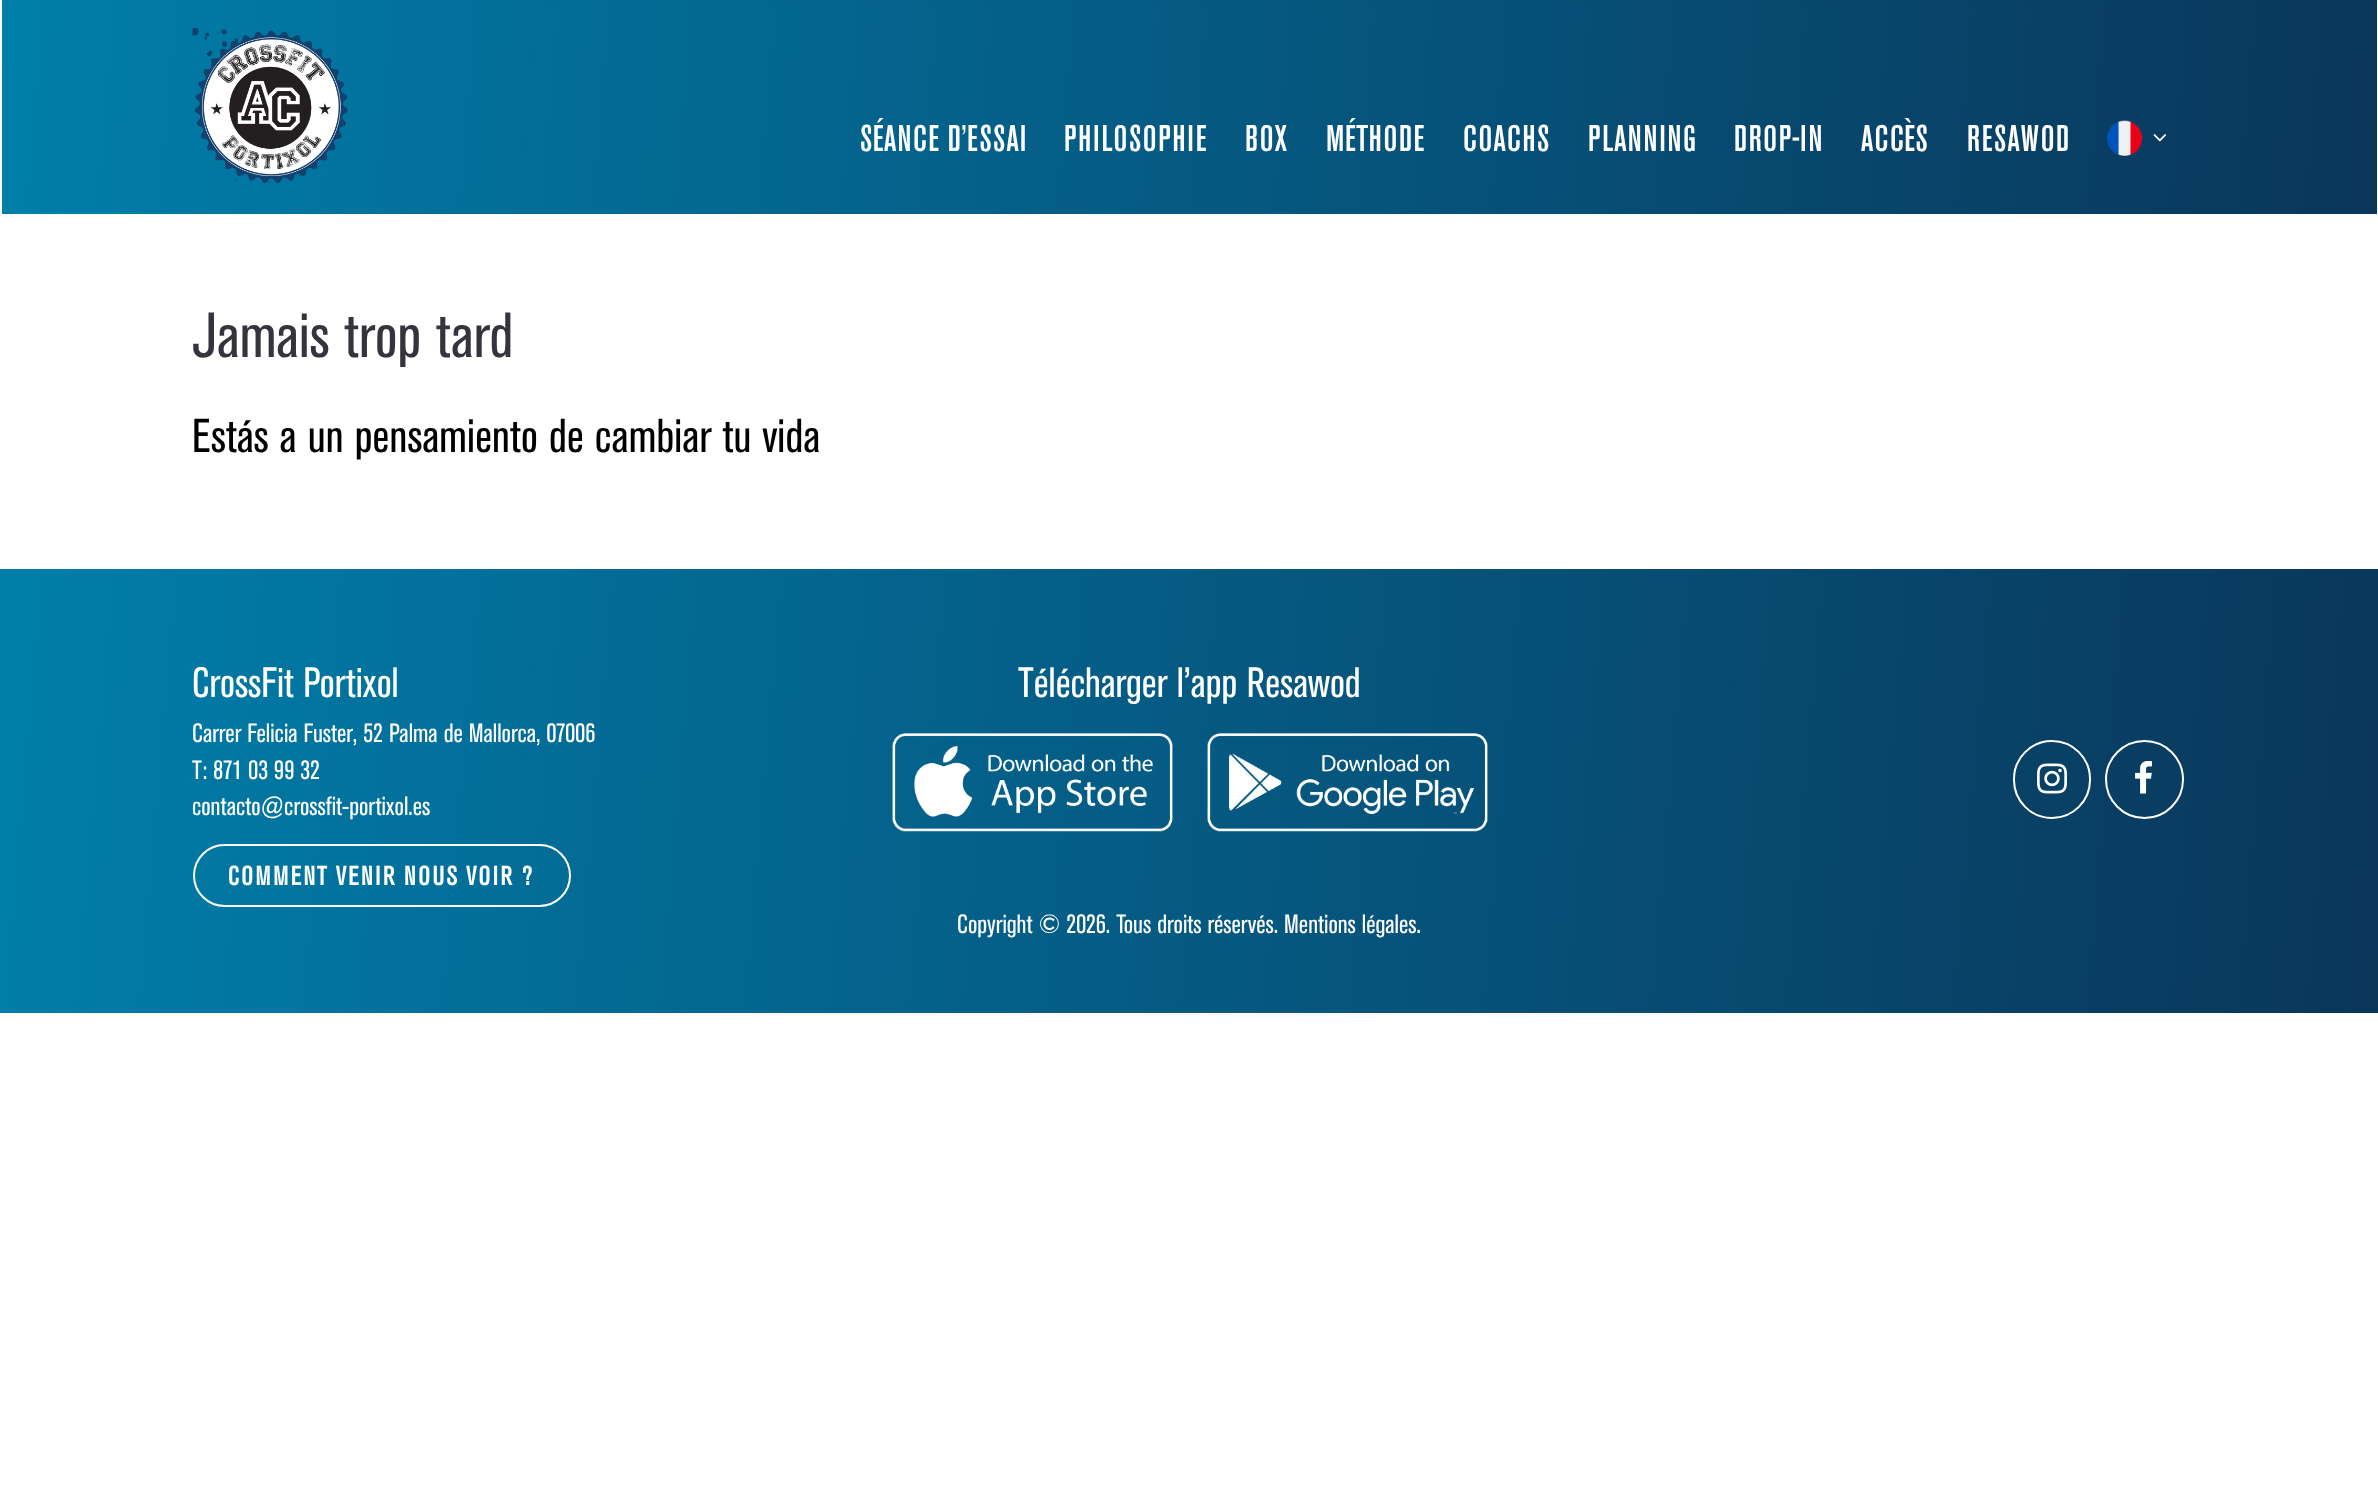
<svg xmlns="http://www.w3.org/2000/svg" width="2378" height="1500">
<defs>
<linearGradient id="g1" gradientUnits="userSpaceOnUse" x1="1.7" y1="-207" x2="2377" y2="0.6"><stop offset="0" stop-color="#007eaa"/><stop offset="1" stop-color="#0a365a"/></linearGradient>
<linearGradient id="g2" gradientUnits="userSpaceOnUse" x1="1.7" y1="2.9" x2="2377" y2="211"><stop offset="0" stop-color="#007eaa"/><stop offset="1" stop-color="#0a365a"/></linearGradient>
<linearGradient id="g3" gradientUnits="userSpaceOnUse" x1="1.7" y1="213" x2="2377" y2="421"><stop offset="0" stop-color="#007eaa"/><stop offset="1" stop-color="#0a365a"/></linearGradient>
<linearGradient id="g4" gradientUnits="userSpaceOnUse" x1="-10" y1="686" x2="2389" y2="896"><stop offset="0" stop-color="#007eaa"/><stop offset="1" stop-color="#0a365a"/></linearGradient>
</defs>
<rect width="100%" height="100%" fill="#fff"/>
<rect x="2" width="2375" height="2" fill="url(#g1)"/>
<rect x="2" y="2" width="2375" height="210" fill="url(#g2)"/>
<rect x="2" y="212" width="2375" height="2" fill="url(#g3)"/>
<image x="192" y="28" width="156" height="157" href="media/1.png"/>
<image x="2107" y="120" width="35" height="36" href="media/2.png"/>
<image x="2153" y="134" width="14" height="8" href="media/3.png"/>
<text x="860" y="151" style="font-family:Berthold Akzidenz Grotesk;font-size:36.75px;font-weight:500;letter-spacing:0.5px;fill:#fff">SÉANCE D’ESSAI</text>
<text x="1064" y="151" style="font-family:Berthold Akzidenz Grotesk;font-size:36.75px;font-weight:500;letter-spacing:0.5px;fill:#fff">PHILOSOPHIE</text>
<text x="1245" y="151" style="font-family:Berthold Akzidenz Grotesk;font-size:36.75px;font-weight:500;letter-spacing:0.5px;fill:#fff">BOX</text>
<text x="1326" y="151" style="font-family:Berthold Akzidenz Grotesk;font-size:36.75px;font-weight:500;letter-spacing:0.5px;fill:#fff">MÉTHODE</text>
<text x="1463" y="151" style="font-family:Berthold Akzidenz Grotesk;font-size:36.75px;font-weight:500;letter-spacing:0.5px;fill:#fff">COACHS</text>
<text x="1588" y="151" style="font-family:Berthold Akzidenz Grotesk;font-size:36.75px;font-weight:500;letter-spacing:0.5px;fill:#fff">PLANNING</text>
<text x="1734" y="151" style="font-family:Berthold Akzidenz Grotesk;font-size:36.75px;font-weight:500;letter-spacing:0.5px;fill:#fff">DROP-IN</text>
<text x="1861" y="151" style="font-family:Berthold Akzidenz Grotesk;font-size:36.75px;font-weight:500;letter-spacing:0.5px;fill:#fff">ACCÈS</text>
<text x="1967" y="151" style="font-family:Berthold Akzidenz Grotesk;font-size:36.75px;font-weight:500;letter-spacing:0.5px;fill:#fff">RESAWOD</text>
<text x="192" y="357" style="font-family:Berthold Akzidenz Grotesk;font-size:63px;letter-spacing:0.2px;fill:#34343c">Jamais trop tard</text>
<text x="192" y="452" style="font-family:Berthold Akzidenz Grotesk;font-size:47.25px;letter-spacing:0.2px;fill:#000">Estás a un pensamiento de cambiar tu vida</text>
<rect y="569" width="2378" height="444" fill="url(#g4)"/>
<text x="192" y="697" style="font-family:Berthold Akzidenz Grotesk;font-size:42px;fill:#fff">CrossFit Portixol</text>
<text x="192" y="742" style="font-family:Berthold Akzidenz Grotesk;font-size:26.25px;fill:#fff">Carrer Felicia Fuster, 52 Palma de Mallorca, 07006</text>
<text x="192" y="779" style="font-family:Berthold Akzidenz Grotesk;font-size:26.25px;fill:#fff">T: 871 03 99 32</text>
<text x="192" y="815" style="font-family:Berthold Akzidenz Grotesk;font-size:26.25px;fill:#fff">contacto@crossfit-portixol.es</text>
<rect x="194" y="845" width="376" height="61" rx="30.5" fill="none" stroke="#fff" stroke-width="2"/>
<text x="228" y="885" style="font-family:Berthold Akzidenz Grotesk;font-size:26.25px;font-weight:bold;letter-spacing:1.75px;fill:#fff">COMMENT VENIR NOUS VOIR ?</text>
<text x="1018" y="697" style="font-family:Berthold Akzidenz Grotesk;font-size:42px;fill:#fff">Télécharger l’app Resawod</text>
<image x="892" y="733" width="281" height="99" href="media/4.png"/>
<image x="1207" y="733" width="281" height="99" href="media/5.png"/>
<rect x="2014" y="741" width="76" height="77" rx="38" fill="none" stroke="#fff" stroke-width="2"/>
<image x="2037" y="763" width="30" height="31" href="media/6.png"/>
<circle cx="2144.5" cy="779.5" r="38.5" fill="none" stroke="#fff" stroke-width="2"/>
<image x="2135" y="761" width="17" height="33" href="media/7.png"/>
<text x="957" y="933" style="font-family:Berthold Akzidenz Grotesk;font-size:26.25px;fill:#fff">Copyright © 2026. Tous droits réservés. Mentions légales.</text>
</svg>
